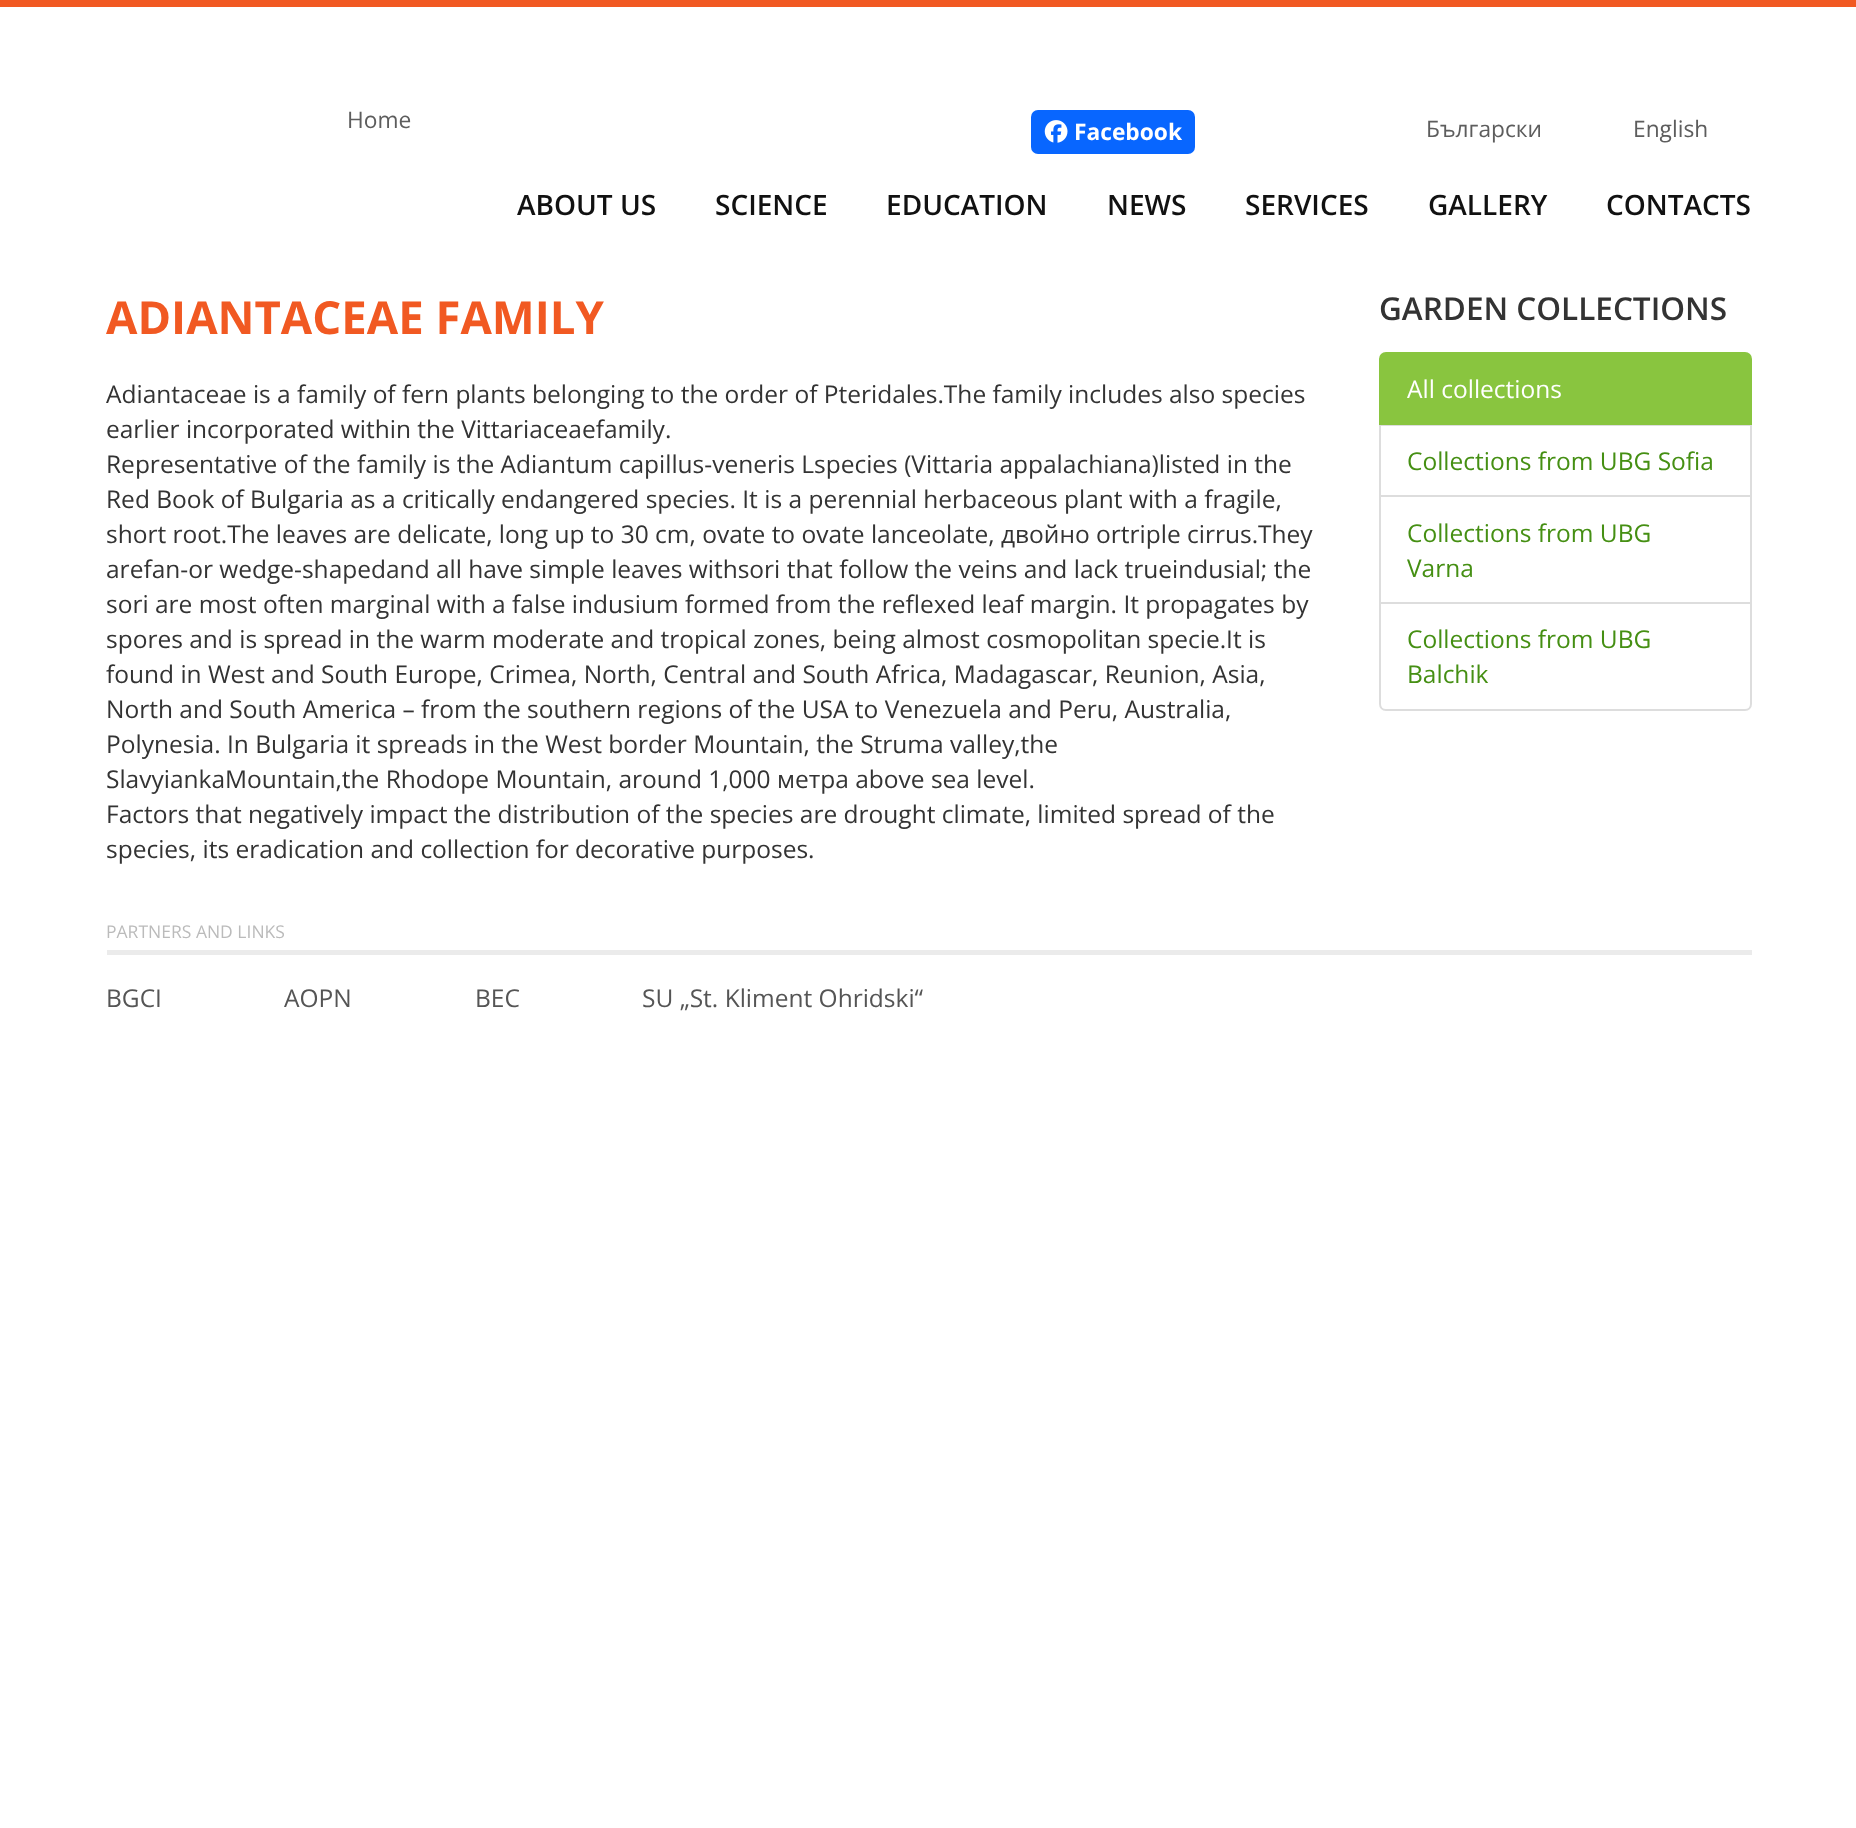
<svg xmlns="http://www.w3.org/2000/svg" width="1856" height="1828">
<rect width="100%" height="100%" fill="#fff"/>
<rect width="1856" height="7" fill="#f15922"/>
<text x="347" y="128" style="font-family:Open Sans;font-size:22.75px;fill:#5d5d5d">Home</text>
<rect x="1031" y="110" width="164" height="44" rx="7" fill="#0866ff"/>
<image x="1044" y="120" width="24" height="23" href="media/1.png"/>
<text x="1074" y="140" style="font-family:Open Sans;font-size:22.75px;font-weight:bold;fill:#fff">Facebook</text>
<text x="1426" y="137" style="font-family:Open Sans;font-size:22.75px;fill:#5d5d5d">Български</text>
<text x="1633" y="137" style="font-family:Open Sans;font-size:22.75px;fill:#5d5d5d">English</text>
<text x="517" y="215" style="font-family:Open Sans;font-size:28px;font-weight:600;fill:#111">ABOUT US</text>
<text x="715" y="215" style="font-family:Open Sans;font-size:28px;font-weight:600;fill:#111">SCIENCE</text>
<text x="886" y="215" style="font-family:Open Sans;font-size:28px;font-weight:600;fill:#111">EDUCATION</text>
<text x="1107" y="215" style="font-family:Open Sans;font-size:28px;font-weight:600;fill:#111">NEWS</text>
<text x="1245" y="215" style="font-family:Open Sans;font-size:28px;font-weight:600;fill:#111">SERVICES</text>
<text x="1428" y="215" style="font-family:Open Sans;font-size:28px;font-weight:600;fill:#111">GALLERY</text>
<text x="1606" y="215" style="font-family:Open Sans;font-size:28px;font-weight:600;fill:#111">CONTACTS</text>
<text x="106" y="334" style="font-family:Open Sans;font-size:45.5px;font-weight:bold;fill:#f15922">ADIANTACEAE FAMILY</text>
<text x="106" y="403" style="font-family:Open Sans;font-size:24.5px;fill:#333">Adiantaceae is a family of fern plants belonging to the order of Pteridales.The family includes also species</text>
<text x="106" y="438" style="font-family:Open Sans;font-size:24.5px;fill:#333">earlier incorporated within the Vittariaceaefamily.</text>
<text x="106" y="473" style="font-family:Open Sans;font-size:24.5px;fill:#333">Representative of the family is the Adiantum capillus-veneris Lspecies (Vittaria appalachiana)listed in the</text>
<text x="106" y="508" style="font-family:Open Sans;font-size:24.5px;fill:#333">Red Book of Bulgaria as a critically endangered species. It is a perennial herbaceous plant with a fragile,</text>
<text x="106" y="543" style="font-family:Open Sans;font-size:24.5px;fill:#333">short root.The leaves are delicate, long up to 30 cm, ovate to ovate lanceolate, двойно ortriple cirrus.They</text>
<text x="106" y="578" style="font-family:Open Sans;font-size:24.5px;fill:#333">arefan-or wedge-shapedand all have simple leaves withsori that follow the veins and lack trueindusial; the</text>
<text x="106" y="613" style="font-family:Open Sans;font-size:24.5px;fill:#333">sori are most often marginal with a false indusium formed from the reflexed leaf margin. It propagates by</text>
<text x="106" y="648" style="font-family:Open Sans;font-size:24.5px;fill:#333">spores and is spread in the warm moderate and tropical zones, being almost cosmopolitan specie.It is</text>
<text x="106" y="683" style="font-family:Open Sans;font-size:24.5px;fill:#333">found in West and South Europe, Crimea, North, Central and South Africa, Madagascar, Reunion, Asia,</text>
<text x="106" y="718" style="font-family:Open Sans;font-size:24.5px;fill:#333">North and South America – from the southern regions of the USA to Venezuela and Peru, Australia,</text>
<text x="106" y="753" style="font-family:Open Sans;font-size:24.5px;fill:#333">Polynesia. In Bulgaria it spreads in the West border Mountain, the Struma valley,the</text>
<text x="106" y="788" style="font-family:Open Sans;font-size:24.5px;fill:#333">SlavyiankaMountain,the Rhodope Mountain, around 1,000 метра above sea level.</text>
<text x="106" y="823" style="font-family:Open Sans;font-size:24.5px;fill:#333">Factors that negatively impact the distribution of the species are drought climate, limited spread of the</text>
<text x="106" y="858" style="font-family:Open Sans;font-size:24.5px;fill:#333">species, its eradication and collection for decorative purposes.</text>
<text x="1379" y="320" style="font-family:Open Sans;font-size:31.5px;font-weight:600;fill:#333">GARDEN COLLECTIONS</text>
<rect x="1380" y="425" width="371" height="71" fill="none" stroke="#ddd" stroke-width="2"/>
<path d="M1386 353h359c3.5 0 6 2.5 6 6v65h-371v-65c0-3.5 2.5-6 6-6z" fill="#89c53f" stroke="#89c53f" stroke-width="2"/>
<text x="1407" y="398" style="font-family:Open Sans;font-size:24.5px;fill:#fff">All collections</text>
<text x="1407" y="470" style="font-family:Open Sans;font-size:24.5px;fill:#458f13">Collections from UBG Sofia</text>
<rect x="1380" y="496" width="371" height="107" fill="none" stroke="#ddd" stroke-width="2"/>
<text x="1407" y="542" style="font-family:Open Sans;font-size:24.5px;fill:#458f13">Collections from UBG</text>
<text x="1407" y="577" style="font-family:Open Sans;font-size:24.5px;fill:#458f13">Varna</text>
<path d="M1380 603h371v101c0 3.5-2.5 6-6 6h-359c-3.5 0-6-2.5-6-6z" fill="#fff" stroke="#ddd" stroke-width="2"/>
<text x="1407" y="648" style="font-family:Open Sans;font-size:24.5px;fill:#458f13">Collections from UBG</text>
<text x="1407" y="683" style="font-family:Open Sans;font-size:24.5px;fill:#458f13">Balchik</text>
<rect x="107" y="950" width="1645" height="5" fill="#ebebeb"/>
<text x="106" y="938" style="font-family:Open Sans;font-size:17.5px;fill:#bbb">PARTNERS AND LINKS</text>
<text x="106" y="1007" style="font-family:Open Sans;font-size:24.5px;fill:#555">BGCI</text>
<text x="284" y="1007" style="font-family:Open Sans;font-size:24.5px;fill:#555">AOPN</text>
<text x="475" y="1007" style="font-family:Open Sans;font-size:24.5px;fill:#555">BEC</text>
<text x="642" y="1007" style="font-family:Open Sans;font-size:24.5px;fill:#555">SU „St. Kliment Ohridski“</text>
</svg>
